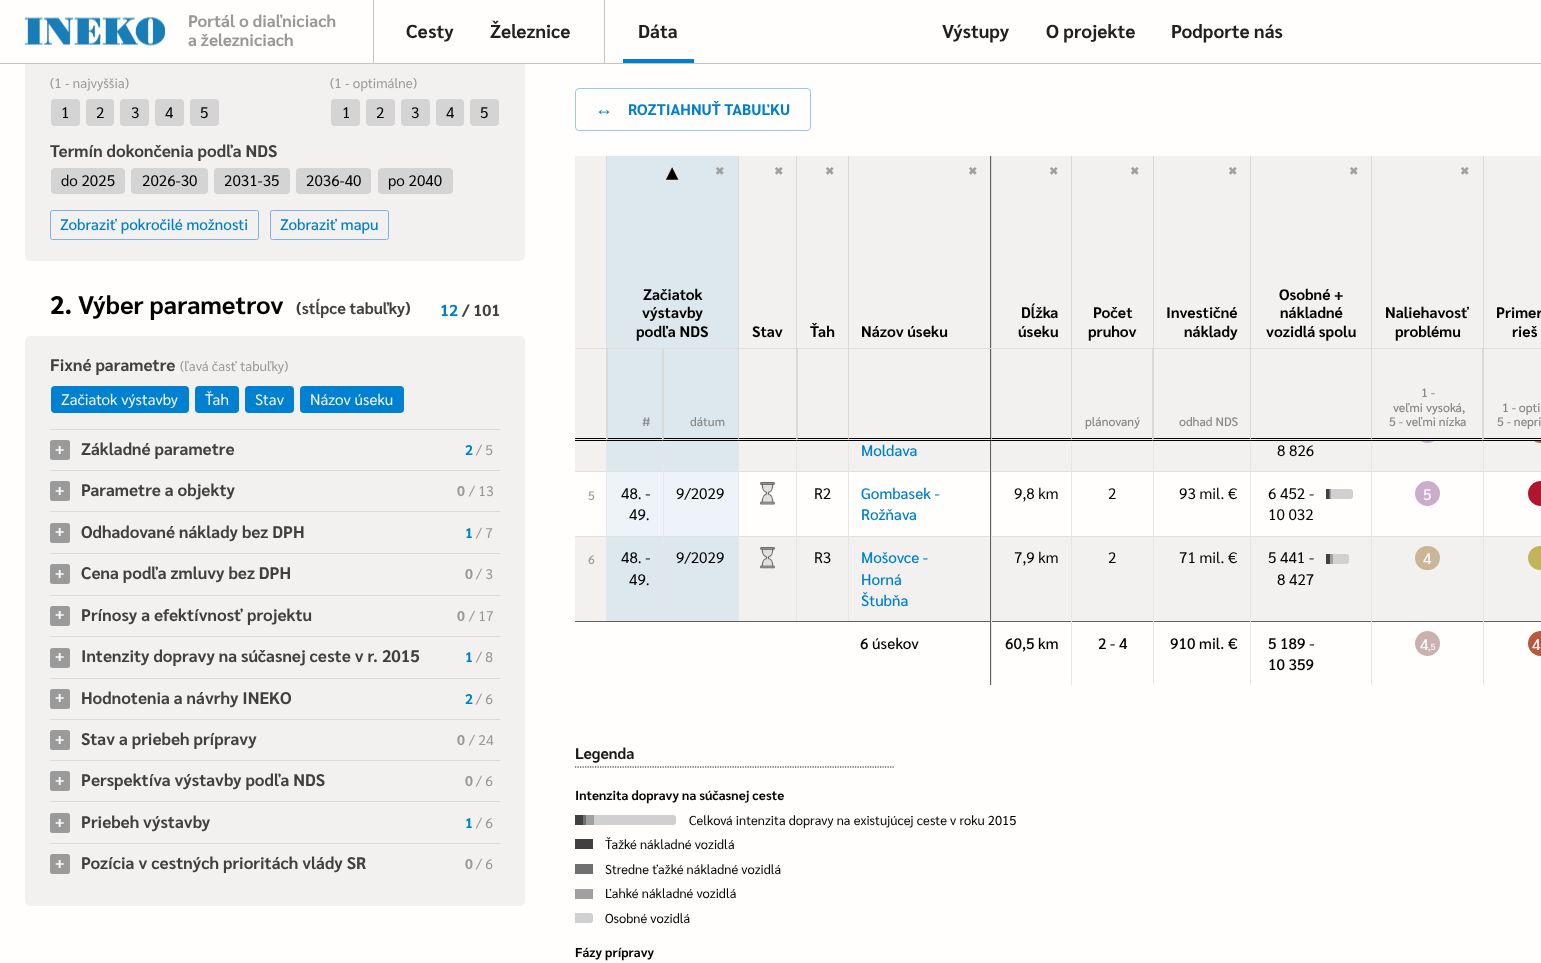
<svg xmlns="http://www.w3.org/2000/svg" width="1541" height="963">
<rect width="100%" height="100%" fill="#fffefd"/>
<rect x="25" y="-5" width="500" height="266" rx="5" fill="#f2f1f0"/>
<rect x="25" width="500" height="63" fill="#fffefd"/>
<rect y="63" width="1541" height="1" fill="#c7c3bf"/>
<image x="25" y="17" width="140" height="29" href="media/1.png"/>
<text x="188" y="27" style="font-family:Sarabun;font-size:16.9px;font-weight:bold;fill:#989898">Portál o diaľniciach</text>
<text x="188" y="46" style="font-family:Sarabun;font-size:16.9px;font-weight:bold;fill:#989898">a železniciach</text>
<rect x="373" width="1" height="63" fill="#c7c3bf"/>
<text x="406" y="38" style="font-family:Sarabun;font-size:18.75px;font-weight:bold;fill:#202020">Cesty</text>
<text x="490" y="38" style="font-family:Sarabun;font-size:18.75px;font-weight:bold;fill:#202020">Železnice</text>
<rect x="604" width="1" height="63" fill="#c7c3bf"/>
<rect x="623" y="59" width="71" height="4" fill="#0080d0"/>
<text x="638" y="38" style="font-family:Sarabun;font-size:18.75px;font-weight:bold;fill:#202020">Dáta</text>
<text x="942" y="38" style="font-family:Sarabun;font-size:18.75px;font-weight:bold;fill:#202020">Výstupy</text>
<text x="1046" y="38" style="font-family:Sarabun;font-size:18.75px;font-weight:bold;fill:#202020">O projekte</text>
<text x="1171" y="38" style="font-family:Sarabun;font-size:18.75px;font-weight:bold;fill:#202020">Podporte nás</text>
<text x="50" y="88" style="font-family:Sarabun;font-size:13.5px;fill:#989898">(1 - najvyššia)</text>
<rect x="51" y="99" width="29" height="27" rx="4" fill="#d4d4d4"/>
<text x="61" y="118" style="font-family:Sarabun;font-size:15.25px;fill:#000">1</text>
<rect x="86" y="99" width="28" height="27" rx="4" fill="#d4d4d4"/>
<text x="96" y="118" style="font-family:Sarabun;font-size:15.25px;fill:#000">2</text>
<rect x="120" y="99" width="29" height="27" rx="4" fill="#d4d4d4"/>
<text x="131" y="118" style="font-family:Sarabun;font-size:15.25px;fill:#000">3</text>
<rect x="155" y="99" width="29" height="27" rx="4" fill="#d4d4d4"/>
<text x="165" y="118" style="font-family:Sarabun;font-size:15.25px;fill:#000">4</text>
<rect x="190" y="99" width="29" height="27" rx="4" fill="#d4d4d4"/>
<text x="200" y="118" style="font-family:Sarabun;font-size:15.25px;fill:#000">5</text>
<text x="330" y="88" style="font-family:Sarabun;font-size:13.5px;fill:#989898">(1 - optimálne)</text>
<rect x="331" y="99" width="29" height="27" rx="4" fill="#d4d4d4"/>
<text x="342" y="118" style="font-family:Sarabun;font-size:15.25px;fill:#000">1</text>
<rect x="366" y="99" width="29" height="27" rx="4" fill="#d4d4d4"/>
<text x="376" y="118" style="font-family:Sarabun;font-size:15.25px;fill:#000">2</text>
<rect x="401" y="99" width="29" height="27" rx="4" fill="#d4d4d4"/>
<text x="411" y="118" style="font-family:Sarabun;font-size:15.25px;fill:#000">3</text>
<rect x="436" y="99" width="28" height="27" rx="4" fill="#d4d4d4"/>
<text x="446" y="118" style="font-family:Sarabun;font-size:15.25px;fill:#000">4</text>
<rect x="470" y="99" width="29" height="27" rx="4" fill="#d4d4d4"/>
<text x="480" y="118" style="font-family:Sarabun;font-size:15.25px;fill:#000">5</text>
<text x="50" y="157" style="font-family:Sarabun;font-size:16.8px;font-weight:bold;fill:#404040">Termín dokončenia podľa NDS</text>
<rect x="51" y="168" width="74" height="26" rx="4" fill="#d4d4d4"/>
<text x="61" y="186" style="font-family:Sarabun;font-size:15.25px;fill:#000">do 2025</text>
<rect x="131" y="168" width="77" height="26" rx="4" fill="#d4d4d4"/>
<text x="142" y="186" style="font-family:Sarabun;font-size:15.25px;fill:#000">2026-30</text>
<rect x="214" y="168" width="76" height="26" rx="4" fill="#d4d4d4"/>
<text x="224" y="186" style="font-family:Sarabun;font-size:15.25px;fill:#000">2031-35</text>
<rect x="296" y="168" width="75" height="26" rx="4" fill="#d4d4d4"/>
<text x="306" y="186" style="font-family:Sarabun;font-size:15.25px;fill:#000">2036-40</text>
<rect x="378" y="168" width="75" height="26" rx="4" fill="#d4d4d4"/>
<text x="388" y="186" style="font-family:Sarabun;font-size:15.25px;fill:#000">po 2040</text>
<rect x="50.5" y="210.5" width="208" height="29" rx="2" fill="none" stroke="#80b0e8"/>
<text x="60" y="230" style="font-family:Sarabun;font-size:15.25px;font-weight:500;fill:#0080cc">Zobraziť pokročilé možnosti</text>
<rect x="270.5" y="210.5" width="118" height="29" rx="2" fill="none" stroke="#80b0e8"/>
<text x="280" y="230" style="font-family:Sarabun;font-size:15.25px;font-weight:500;fill:#0080cc">Zobraziť mapu</text>
<text x="50" y="314" style="font-family:Sarabun;font-size:25.25px;font-weight:800;fill:#000">2.</text>
<text x="78" y="314" style="font-family:Sarabun;font-size:25.25px;font-weight:bold;fill:#000">Výber parametrov</text>
<text x="296" y="314" style="font-family:Sarabun;font-size:16px;font-weight:bold;fill:#404040">(stĺpce tabuľky)</text>
<text x="440" y="316" style="font-family:Sarabun;font-size:16px;font-weight:bold;fill:#0080cc">12</text>
<text x="462" y="316" style="font-family:Sarabun;font-size:16px;font-weight:bold;fill:#404040">/ 101</text>
<rect x="25" y="336" width="500" height="570" rx="5" fill="#f2f1f0"/>
<text x="50" y="371" style="font-family:Sarabun;font-size:16.8px;font-weight:bold;fill:#404040">Fixné parametre</text>
<text x="180" y="371" style="font-family:Sarabun;font-size:13.5px;fill:#989898">(ľavá časť tabuľky)</text>
<rect x="51" y="386" width="138" height="27" rx="4" fill="#0080d0"/>
<text x="61" y="405" style="font-family:Sarabun;font-size:15.25px;fill:#f8f8f8">Začiatok výstavby</text>
<rect x="195" y="386" width="44" height="27" rx="4" fill="#0080d0"/>
<text x="205" y="405" style="font-family:Sarabun;font-size:15.25px;fill:#f8f8f8">Ťah</text>
<rect x="245" y="386" width="49" height="27" rx="4" fill="#0080d0"/>
<text x="255" y="405" style="font-family:Sarabun;font-size:15.25px;fill:#f8f8f8">Stav</text>
<rect x="300" y="386" width="104" height="27" rx="4" fill="#0080d0"/>
<text x="310" y="405" style="font-family:Sarabun;font-size:15.25px;fill:#f8f8f8">Názov úseku</text>
<rect x="50" y="440" width="20" height="20" rx="2.5" fill="#9a9a9a"/>
<text x="55" y="454" style="font-family:Sarabun;font-size:15.25px;font-weight:bold;fill:#f8f8f8">+</text>
<rect x="50" y="429" width="450" height="1" fill="#dadada"/>
<text x="81" y="455" style="font-family:Sarabun;font-size:16.8px;font-weight:bold;fill:#404040">Základné parametre</text>
<text x="465" y="455" style="font-family:Sarabun;font-size:14px;font-weight:bold;fill:#0080cc">2</text>
<text x="476" y="455" style="font-family:Sarabun;font-size:14px;fill:#989898">/ 5</text>
<rect x="50" y="481" width="20" height="20" rx="2.5" fill="#9a9a9a"/>
<text x="55" y="495" style="font-family:Sarabun;font-size:15.25px;font-weight:bold;fill:#f8f8f8">+</text>
<rect x="50" y="470" width="450" height="1" fill="#dadada"/>
<text x="81" y="496" style="font-family:Sarabun;font-size:16.8px;font-weight:bold;fill:#404040">Parametre a objekty</text>
<text x="457" y="496" style="font-family:Sarabun;font-size:14px;font-weight:bold;fill:#989898">0</text>
<text x="469" y="496" style="font-family:Sarabun;font-size:14px;fill:#989898">/ 13</text>
<rect x="50" y="523" width="20" height="20" rx="2.5" fill="#9a9a9a"/>
<text x="55" y="536" style="font-family:Sarabun;font-size:15.25px;font-weight:bold;fill:#f8f8f8">+</text>
<rect x="50" y="511" width="450" height="1" fill="#dadada"/>
<text x="81" y="538" style="font-family:Sarabun;font-size:16.8px;font-weight:bold;fill:#404040">Odhadované náklady bez DPH</text>
<text x="465" y="538" style="font-family:Sarabun;font-size:14px;font-weight:bold;fill:#0080cc">1</text>
<text x="476" y="538" style="font-family:Sarabun;font-size:14px;fill:#989898">/ 7</text>
<rect x="50" y="564" width="20" height="20" rx="2.5" fill="#9a9a9a"/>
<text x="55" y="578" style="font-family:Sarabun;font-size:15.25px;font-weight:bold;fill:#f8f8f8">+</text>
<rect x="50" y="553" width="450" height="1" fill="#dadada"/>
<text x="81" y="579" style="font-family:Sarabun;font-size:16.8px;font-weight:bold;fill:#404040">Cena podľa zmluvy bez DPH</text>
<text x="465" y="579" style="font-family:Sarabun;font-size:14px;font-weight:bold;fill:#989898">0</text>
<text x="476" y="579" style="font-family:Sarabun;font-size:14px;fill:#989898">/ 3</text>
<rect x="50" y="606" width="20" height="20" rx="2.5" fill="#9a9a9a"/>
<text x="55" y="619" style="font-family:Sarabun;font-size:15.25px;font-weight:bold;fill:#f8f8f8">+</text>
<rect x="50" y="595" width="450" height="1" fill="#dadada"/>
<text x="81" y="621" style="font-family:Sarabun;font-size:16.8px;font-weight:bold;fill:#404040">Prínosy a efektívnosť projektu</text>
<text x="457" y="621" style="font-family:Sarabun;font-size:14px;font-weight:bold;fill:#989898">0</text>
<text x="469" y="621" style="font-family:Sarabun;font-size:14px;fill:#989898">/ 17</text>
<rect x="50" y="648" width="20" height="20" rx="2.5" fill="#9a9a9a"/>
<text x="55" y="661" style="font-family:Sarabun;font-size:15.25px;font-weight:bold;fill:#f8f8f8">+</text>
<rect x="50" y="636" width="450" height="1" fill="#dadada"/>
<text x="81" y="662" style="font-family:Sarabun;font-size:16.8px;font-weight:bold;fill:#404040">Intenzity dopravy na súčasnej ceste v r. 2015</text>
<text x="465" y="662" style="font-family:Sarabun;font-size:14px;font-weight:bold;fill:#0080cc">1</text>
<text x="476" y="662" style="font-family:Sarabun;font-size:14px;fill:#989898">/ 8</text>
<rect x="50" y="689" width="20" height="20" rx="2.5" fill="#9a9a9a"/>
<text x="55" y="702" style="font-family:Sarabun;font-size:15.25px;font-weight:bold;fill:#f8f8f8">+</text>
<rect x="50" y="678" width="450" height="1" fill="#dadada"/>
<text x="81" y="704" style="font-family:Sarabun;font-size:16.8px;font-weight:bold;fill:#404040">Hodnotenia a návrhy INEKO</text>
<text x="465" y="704" style="font-family:Sarabun;font-size:14px;font-weight:bold;fill:#0080cc">2</text>
<text x="476" y="704" style="font-family:Sarabun;font-size:14px;fill:#989898">/ 6</text>
<rect x="50" y="730" width="20" height="20" rx="2.5" fill="#9a9a9a"/>
<text x="55" y="744" style="font-family:Sarabun;font-size:15.25px;font-weight:bold;fill:#f8f8f8">+</text>
<rect x="50" y="719" width="450" height="1" fill="#dadada"/>
<text x="81" y="745" style="font-family:Sarabun;font-size:16.8px;font-weight:bold;fill:#404040">Stav a priebeh prípravy</text>
<text x="457" y="745" style="font-family:Sarabun;font-size:14px;font-weight:bold;fill:#989898">0</text>
<text x="469" y="745" style="font-family:Sarabun;font-size:14px;fill:#989898">/ 24</text>
<rect x="50" y="771" width="20" height="20" rx="2.5" fill="#9a9a9a"/>
<text x="55" y="785" style="font-family:Sarabun;font-size:15.25px;font-weight:bold;fill:#f8f8f8">+</text>
<rect x="50" y="760" width="450" height="1" fill="#dadada"/>
<text x="81" y="786" style="font-family:Sarabun;font-size:16.8px;font-weight:bold;fill:#404040">Perspektíva výstavby podľa NDS</text>
<text x="465" y="786" style="font-family:Sarabun;font-size:14px;font-weight:bold;fill:#989898">0</text>
<text x="476" y="786" style="font-family:Sarabun;font-size:14px;fill:#989898">/ 6</text>
<rect x="50" y="813" width="20" height="20" rx="2.5" fill="#9a9a9a"/>
<text x="55" y="827" style="font-family:Sarabun;font-size:15.25px;font-weight:bold;fill:#f8f8f8">+</text>
<rect x="50" y="801" width="450" height="1" fill="#dadada"/>
<text x="81" y="828" style="font-family:Sarabun;font-size:16.8px;font-weight:bold;fill:#404040">Priebeh výstavby</text>
<text x="465" y="828" style="font-family:Sarabun;font-size:14px;font-weight:bold;fill:#0080cc">1</text>
<text x="476" y="828" style="font-family:Sarabun;font-size:14px;fill:#989898">/ 6</text>
<rect x="50" y="854" width="20" height="20" rx="2.5" fill="#9a9a9a"/>
<text x="55" y="868" style="font-family:Sarabun;font-size:15.25px;font-weight:bold;fill:#f8f8f8">+</text>
<rect x="50" y="843" width="450" height="1" fill="#dadada"/>
<text x="81" y="869" style="font-family:Sarabun;font-size:16.8px;font-weight:bold;fill:#404040">Pozícia v cestných prioritách vlády SR</text>
<text x="465" y="869" style="font-family:Sarabun;font-size:14px;font-weight:bold;fill:#989898">0</text>
<text x="476" y="869" style="font-family:Sarabun;font-size:14px;fill:#989898">/ 6</text>
<rect x="575.5" y="88.5" width="235" height="42" rx="3.5" fill="none" stroke="#98c9e7"/>
<text x="595" y="115" style="font-family:Liberation Sans;font-size:18px;font-weight:bold;fill:#0080cc">↔</text>
<text x="628" y="115" style="font-family:Sarabun;font-size:15.25px;font-weight:bold;fill:#0080cc">ROZTIAHNUŤ TABUĽKU</text>
<rect x="575" y="156" width="31" height="192" fill="#f2f1f0"/>
<rect x="575" y="348" width="273" height="1" fill="#e0e0e0"/>
<rect x="607" y="156" width="131" height="192" fill="#dce8ed"/>
<rect x="606" y="156" width="1" height="193" fill="#dadada"/>
<text x="666" y="180" style="font-family:DejaVu Sans;font-size:23px;font-weight:bold;fill:#000">▴</text>
<text x="715" y="175" style="font-family:DejaVu Sans;font-size:11px;font-weight:bold;fill:#a0a0a0">✖</text>
<text x="643" y="300" style="font-family:Sarabun;font-size:15.25px;font-weight:bold;fill:#000">Začiatok</text>
<text x="642" y="318" style="font-family:Sarabun;font-size:15.25px;font-weight:bold;fill:#000">výstavby</text>
<text x="636" y="337" style="font-family:Sarabun;font-size:15.25px;font-weight:bold;fill:#000">podľa NDS</text>
<rect x="739" y="156" width="57" height="192" fill="#f2f1f0"/>
<rect x="738" y="156" width="1" height="193" fill="#dadada"/>
<text x="774" y="175" style="font-family:DejaVu Sans;font-size:11px;font-weight:bold;fill:#a0a0a0">✖</text>
<text x="752" y="337" style="font-family:Sarabun;font-size:15.25px;font-weight:bold;fill:#000">Stav</text>
<rect x="797" y="156" width="51" height="192" fill="#f2f1f0"/>
<rect x="796" y="156" width="1" height="193" fill="#dadada"/>
<text x="825" y="175" style="font-family:DejaVu Sans;font-size:11px;font-weight:bold;fill:#a0a0a0">✖</text>
<text x="810" y="337" style="font-family:Sarabun;font-size:15.25px;font-weight:bold;fill:#000">Ťah</text>
<rect x="849" y="156" width="141" height="192" fill="#f2f1f0"/>
<rect x="990" y="156" width="1" height="193" fill="#606060"/>
<rect x="848" y="348" width="693" height="1" fill="#e0e0e0"/>
<rect x="848" y="156" width="1" height="193" fill="#dadada"/>
<text x="968" y="175" style="font-family:DejaVu Sans;font-size:11px;font-weight:bold;fill:#a0a0a0">✖</text>
<text x="861" y="337" style="font-family:Sarabun;font-size:15.25px;font-weight:bold;fill:#000">Názov úseku</text>
<rect x="992" y="156" width="79" height="192" fill="#f2f1f0"/>
<rect x="991" y="156" width="1" height="193" fill="#dadada"/>
<text x="1049" y="175" style="font-family:DejaVu Sans;font-size:11px;font-weight:bold;fill:#a0a0a0">✖</text>
<text x="1021" y="318" style="font-family:Sarabun;font-size:15.25px;font-weight:bold;fill:#000">Dĺžka</text>
<text x="1018" y="337" style="font-family:Sarabun;font-size:15.25px;font-weight:bold;fill:#000">úseku</text>
<rect x="1072" y="156" width="81" height="192" fill="#f2f1f0"/>
<rect x="1071" y="156" width="1" height="193" fill="#dadada"/>
<text x="1130" y="175" style="font-family:DejaVu Sans;font-size:11px;font-weight:bold;fill:#a0a0a0">✖</text>
<text x="1093" y="318" style="font-family:Sarabun;font-size:15.25px;font-weight:bold;fill:#000">Počet</text>
<text x="1088" y="337" style="font-family:Sarabun;font-size:15.25px;font-weight:bold;fill:#000">pruhov</text>
<rect x="1154" y="156" width="96" height="192" fill="#f2f1f0"/>
<rect x="1153" y="156" width="1" height="193" fill="#dadada"/>
<text x="1228" y="175" style="font-family:DejaVu Sans;font-size:11px;font-weight:bold;fill:#a0a0a0">✖</text>
<text x="1166" y="318" style="font-family:Sarabun;font-size:15.25px;font-weight:bold;fill:#000">Investičné</text>
<text x="1184" y="337" style="font-family:Sarabun;font-size:15.25px;font-weight:bold;fill:#000">náklady</text>
<rect x="1251" y="156" width="120" height="192" fill="#f2f1f0"/>
<rect x="1250" y="156" width="1" height="193" fill="#dadada"/>
<text x="1349" y="175" style="font-family:DejaVu Sans;font-size:11px;font-weight:bold;fill:#a0a0a0">✖</text>
<text x="1279" y="300" style="font-family:Sarabun;font-size:15.25px;font-weight:bold;fill:#000">Osobné +</text>
<text x="1280" y="318" style="font-family:Sarabun;font-size:15.25px;font-weight:bold;fill:#000">nákladné</text>
<text x="1266" y="337" style="font-family:Sarabun;font-size:15.25px;font-weight:bold;fill:#000">vozidlá spolu</text>
<rect x="1372" y="156" width="111" height="192" fill="#f2f1f0"/>
<rect x="1371" y="156" width="1" height="193" fill="#dadada"/>
<text x="1460" y="175" style="font-family:DejaVu Sans;font-size:11px;font-weight:bold;fill:#a0a0a0">✖</text>
<text x="1385" y="318" style="font-family:Sarabun;font-size:15.25px;font-weight:bold;fill:#000">Naliehavosť</text>
<text x="1395" y="337" style="font-family:Sarabun;font-size:15.25px;font-weight:bold;fill:#000">problému</text>
<rect x="1484" y="156" width="57" height="192" fill="#f2f1f0"/>
<rect x="1483" y="156" width="1" height="193" fill="#dadada"/>
<text x="1496" y="318" style="font-family:Sarabun;font-size:15.25px;font-weight:bold;fill:#000">Primer</text>
<text x="1512" y="337" style="font-family:Sarabun;font-size:15.25px;font-weight:bold;fill:#000">rieš</text>
<rect x="575" y="349" width="31" height="91" fill="#f2f1f0"/>
<rect x="575" y="438" width="31" height="1" fill="#000"/>
<rect x="575" y="440" width="273" height="1" fill="#000"/>
<rect x="1372" y="441" width="111" height="30" fill="#f2f1f0"/>
<circle cx="1427.5" cy="430.5" r="12.5" fill="#caadca"/>
<rect x="1484" y="441" width="57" height="30" fill="#f2f1f0"/>
<circle cx="1540.5" cy="430.5" r="12.5" fill="#b96643"/>
<rect x="738" y="349" width="803" height="91" fill="#f2f1f0"/>
<rect x="738" y="438" width="110" height="1" fill="#000"/>
<path d="M738 441v-92h1v89z" fill="#dadada"/>
<path d="M796 441v-92h2v89z" fill="#dadada"/>
<path d="M991 349v92l-1-3v-89z" fill="#606060"/>
<rect x="848" y="438" width="693" height="1" fill="#000"/>
<rect x="848" y="440" width="693" height="1" fill="#000"/>
<path d="M848 441v-92h1v89z" fill="#dadada"/>
<rect x="606" y="349" width="132" height="91" fill="#dce8ed"/>
<rect x="606" y="438" width="132" height="1" fill="#000"/>
<path d="M606 441v-92h2v89z" fill="#dadada"/>
<text x="642" y="426" style="font-family:Sarabun;font-size:12.25px;font-weight:500;fill:#888">#</text>
<path d="M662 441v-92h2v89z" fill="#dadada"/>
<text x="690" y="426" style="font-family:Sarabun;font-size:12.25px;font-weight:500;fill:#888">dátum</text>
<path d="M991 441v-92h1v89z" fill="#dadada"/>
<path d="M1071 441v-92h1v89z" fill="#dadada"/>
<text x="1085" y="426" style="font-family:Sarabun;font-size:12.25px;font-weight:500;fill:#888">plánovaný</text>
<path d="M1152 441v-92h2v89z" fill="#dadada"/>
<text x="1179" y="426" style="font-family:Sarabun;font-size:12.25px;font-weight:500;fill:#888">odhad NDS</text>
<path d="M1250 441v-92h1v89z" fill="#dadada"/>
<path d="M1371 441v-92h1v89z" fill="#dadada"/>
<text x="1421" y="397" style="font-family:Sarabun;font-size:12.25px;font-weight:500;fill:#888">1 -</text>
<text x="1393" y="412" style="font-family:Sarabun;font-size:12.25px;font-weight:500;fill:#888">veľmi vysoká,</text>
<text x="1389" y="426" style="font-family:Sarabun;font-size:12.25px;font-weight:500;fill:#888">5 - veľmi nízka</text>
<path d="M1482 441v-92h2v89z" fill="#dadada"/>
<text x="1502" y="412" style="font-family:Sarabun;font-size:12.25px;font-weight:500;fill:#888">1 - opti</text>
<text x="1497" y="426" style="font-family:Sarabun;font-size:12.25px;font-weight:500;fill:#888">5 - nepri</text>
<rect x="575" y="441" width="31" height="30" fill="#f2f1f0"/>
<rect x="607" y="441" width="56" height="30" fill="#dce8ed"/>
<rect x="606" y="441" width="1" height="30" fill="#e6e6e6"/>
<rect x="664" y="441" width="74" height="30" fill="#dce8ed"/>
<rect x="663" y="441" width="1" height="30" fill="#e6e6e6"/>
<rect x="739" y="441" width="57" height="30" fill="#f2f1f0"/>
<rect x="738" y="441" width="1" height="30" fill="#e6e6e6"/>
<rect x="797" y="441" width="51" height="30" fill="#f2f1f0"/>
<rect x="796" y="441" width="1" height="30" fill="#e6e6e6"/>
<rect x="849" y="441" width="141" height="30" fill="#f2f1f0"/>
<rect x="990" y="441" width="1" height="30" fill="#606060"/>
<rect x="848" y="441" width="1" height="30" fill="#e6e6e6"/>
<text x="861" y="456" style="font-family:Sarabun;font-size:15.25px;font-weight:500;fill:#0080cc">Moldava</text>
<rect x="992" y="441" width="79" height="30" fill="#f2f1f0"/>
<rect x="991" y="441" width="1" height="30" fill="#e6e6e6"/>
<rect x="1072" y="441" width="81" height="30" fill="#f2f1f0"/>
<rect x="1071" y="441" width="1" height="30" fill="#e6e6e6"/>
<rect x="1154" y="441" width="96" height="30" fill="#f2f1f0"/>
<rect x="1153" y="441" width="1" height="30" fill="#e6e6e6"/>
<rect x="1251" y="441" width="120" height="30" fill="#f2f1f0"/>
<rect x="1250" y="441" width="1" height="30" fill="#e6e6e6"/>
<text x="1277" y="456" style="font-family:Sarabun;font-size:15.25px;fill:#000">8 826</text>
<rect x="1371" y="441" width="1" height="30" fill="#e6e6e6"/>
<rect x="1483" y="441" width="1" height="30" fill="#e6e6e6"/>
<rect x="575" y="471" width="966" height="1" fill="#e0e0e0"/>
<text x="588" y="500" style="font-family:Sarabun;font-size:12.25px;font-weight:500;fill:#a0a0a0">5</text>
<rect x="607" y="472" width="56" height="64" fill="#edf3f8"/>
<rect x="606" y="471" width="1" height="65" fill="#e6e6e6"/>
<text x="621" y="499" style="font-family:Sarabun;font-size:15.25px;fill:#000">48. -</text>
<text x="629" y="520" style="font-family:Sarabun;font-size:15.25px;fill:#000">49.</text>
<rect x="664" y="472" width="74" height="64" fill="#edf3f8"/>
<rect x="663" y="471" width="1" height="65" fill="#e6e6e6"/>
<text x="676" y="499" style="font-family:Sarabun;font-size:15.25px;fill:#000">9/2029</text>
<rect x="738" y="471" width="1" height="65" fill="#e6e6e6"/>
<image x="760" y="482" width="15" height="23" href="media/2.png"/>
<rect x="796" y="471" width="1" height="65" fill="#e6e6e6"/>
<text x="814" y="499" style="font-family:Sarabun;font-size:15.25px;fill:#000">R2</text>
<rect x="990" y="471" width="1" height="65" fill="#606060"/>
<rect x="848" y="471" width="1" height="65" fill="#e6e6e6"/>
<text x="861" y="499" style="font-family:Sarabun;font-size:15.25px;font-weight:500;fill:#0080cc">Gombasek -</text>
<text x="861" y="520" style="font-family:Sarabun;font-size:15.25px;font-weight:500;fill:#0080cc">Rožňava</text>
<rect x="991" y="471" width="1" height="65" fill="#e6e6e6"/>
<text x="1014" y="499" style="font-family:Sarabun;font-size:15.25px;fill:#000">9,8 km</text>
<rect x="1071" y="471" width="1" height="65" fill="#e6e6e6"/>
<text x="1108" y="499" style="font-family:Sarabun;font-size:15.25px;fill:#000">2</text>
<rect x="1153" y="471" width="1" height="65" fill="#e6e6e6"/>
<text x="1179" y="499" style="font-family:Sarabun;font-size:15.25px;fill:#000">93 mil. €</text>
<rect x="1250" y="471" width="1" height="65" fill="#e6e6e6"/>
<text x="1268" y="499" style="font-family:Sarabun;font-size:15.25px;fill:#000">6 452 -</text>
<text x="1268" y="520" style="font-family:Sarabun;font-size:15.25px;fill:#000">10 032</text>
<rect x="1326" y="489" width="3" height="10" fill="#404040"/>
<rect x="1329" y="489" width="1" height="10" fill="#707070"/>
<rect x="1330" y="489" width="1" height="10" fill="#a0a0a0"/>
<path d="M1331 489h19.5c1.5 0 2.5 1 2.5 2.5v5c0 1.5-1 2.5-2.5 2.5h-19.5z" fill="#d0d0d0"/>
<rect x="1371" y="471" width="1" height="65" fill="#e6e6e6"/>
<circle cx="1427.5" cy="493.5" r="12.5" fill="#caadca"/>
<text x="1423" y="500" style="font-family:Sarabun;font-size:15.25px;font-weight:500;fill:#f8f8f8">5</text>
<rect x="1483" y="471" width="1" height="65" fill="#e6e6e6"/>
<circle cx="1540.5" cy="493.5" r="12.5" fill="#b0172e"/>
<rect x="575" y="537" width="31" height="84" fill="#f2f1f0"/>
<rect x="575" y="536" width="966" height="1" fill="#e0e0e0"/>
<text x="588" y="564" style="font-family:Sarabun;font-size:12.25px;font-weight:500;fill:#a0a0a0">6</text>
<rect x="607" y="537" width="56" height="84" fill="#dce8ed"/>
<rect x="606" y="536" width="1" height="85" fill="#e6e6e6"/>
<text x="621" y="563" style="font-family:Sarabun;font-size:15.25px;fill:#000">48. -</text>
<text x="629" y="585" style="font-family:Sarabun;font-size:15.25px;fill:#000">49.</text>
<rect x="664" y="537" width="74" height="84" fill="#dce8ed"/>
<rect x="663" y="536" width="1" height="85" fill="#e6e6e6"/>
<text x="676" y="563" style="font-family:Sarabun;font-size:15.25px;fill:#000">9/2029</text>
<rect x="739" y="537" width="57" height="84" fill="#f2f1f0"/>
<rect x="738" y="536" width="1" height="85" fill="#e6e6e6"/>
<image x="760" y="547" width="15" height="22" href="media/3.png"/>
<rect x="797" y="537" width="51" height="84" fill="#f2f1f0"/>
<rect x="796" y="536" width="1" height="85" fill="#e6e6e6"/>
<text x="814" y="563" style="font-family:Sarabun;font-size:15.25px;fill:#000">R3</text>
<rect x="849" y="537" width="141" height="84" fill="#f2f1f0"/>
<rect x="990" y="536" width="1" height="85" fill="#606060"/>
<rect x="848" y="536" width="1" height="85" fill="#e6e6e6"/>
<text x="861" y="563" style="font-family:Sarabun;font-size:15.25px;font-weight:500;fill:#0080cc">Mošovce -</text>
<text x="861" y="585" style="font-family:Sarabun;font-size:15.25px;font-weight:500;fill:#0080cc">Horná</text>
<text x="861" y="606" style="font-family:Sarabun;font-size:15.25px;font-weight:500;fill:#0080cc">Štubňa</text>
<rect x="992" y="537" width="79" height="84" fill="#f2f1f0"/>
<rect x="991" y="536" width="1" height="85" fill="#e6e6e6"/>
<text x="1014" y="563" style="font-family:Sarabun;font-size:15.25px;fill:#000">7,9 km</text>
<rect x="1072" y="537" width="81" height="84" fill="#f2f1f0"/>
<rect x="1071" y="536" width="1" height="85" fill="#e6e6e6"/>
<text x="1108" y="563" style="font-family:Sarabun;font-size:15.25px;fill:#000">2</text>
<rect x="1154" y="537" width="96" height="84" fill="#f2f1f0"/>
<rect x="1153" y="536" width="1" height="85" fill="#e6e6e6"/>
<text x="1179" y="563" style="font-family:Sarabun;font-size:15.25px;fill:#000">71 mil. €</text>
<rect x="1251" y="537" width="120" height="84" fill="#f2f1f0"/>
<rect x="1250" y="536" width="1" height="85" fill="#e6e6e6"/>
<text x="1268" y="563" style="font-family:Sarabun;font-size:15.25px;fill:#000">5 441 -</text>
<text x="1277" y="585" style="font-family:Sarabun;font-size:15.25px;fill:#000">8 427</text>
<rect x="1326" y="554" width="4" height="10" fill="#404040"/>
<rect x="1330" y="554" width="3" height="10" fill="#a0a0a0"/>
<path d="M1333 554h13.5c1.5 0 2.5 1 2.5 2.5v5c0 1.5-1 2.5-2.5 2.5h-13.5z" fill="#d0d0d0"/>
<rect x="1372" y="537" width="111" height="84" fill="#f2f1f0"/>
<rect x="1371" y="536" width="1" height="85" fill="#e6e6e6"/>
<rect x="1415" y="546" width="25" height="24" rx="12" fill="#cab597"/>
<text x="1423" y="564" style="font-family:Sarabun;font-size:15.25px;font-weight:500;fill:#f8f8f8">4</text>
<rect x="1484" y="537" width="57" height="84" fill="#f2f1f0"/>
<rect x="1483" y="536" width="1" height="85" fill="#e6e6e6"/>
<path d="M1540 546h1v24h-1c-6.5 0-12-5.5-12-12c0-6.5 5.5-12 12-12z" fill="#c2b458"/>
<rect x="575" y="621" width="966" height="1" fill="#606060"/>
<rect x="990" y="621" width="1" height="64" fill="#606060"/>
<text x="860" y="649" style="font-family:Sarabun;font-size:15.25px;font-weight:500;fill:#000">6 úsekov</text>
<rect x="991" y="621" width="1" height="64" fill="#e6e6e6"/>
<text x="1005" y="649" style="font-family:Sarabun;font-size:15.25px;font-weight:500;fill:#000">60,5 km</text>
<rect x="1071" y="621" width="1" height="64" fill="#e6e6e6"/>
<text x="1098" y="649" style="font-family:Sarabun;font-size:15.25px;font-weight:500;fill:#000">2 - 4</text>
<rect x="1153" y="621" width="1" height="64" fill="#e6e6e6"/>
<text x="1170" y="649" style="font-family:Sarabun;font-size:15.25px;font-weight:500;fill:#000">910 mil. €</text>
<rect x="1250" y="621" width="1" height="64" fill="#e6e6e6"/>
<text x="1268" y="649" style="font-family:Sarabun;font-size:15.25px;font-weight:500;fill:#000">5 189 -</text>
<text x="1268" y="670" style="font-family:Sarabun;font-size:15.25px;font-weight:500;fill:#000">10 359</text>
<rect x="1371" y="621" width="1" height="64" fill="#e6e6e6"/>
<circle cx="1427.5" cy="643.5" r="12.5" fill="#cab1b0"/>
<text x="1420" y="650" style="font-family:Sarabun;font-size:15.25px;font-weight:500;fill:#f8f8f8">4</text>
<text x="1428" y="650" style="font-family:Sarabun;font-size:9px;font-weight:500;fill:#f8f8f8">,5</text>
<rect x="1483" y="621" width="1" height="64" fill="#e6e6e6"/>
<circle cx="1540.5" cy="643.5" r="12.5" fill="#b7583f"/>
<text x="1532" y="650" style="font-family:Sarabun;font-size:15.25px;font-weight:500;fill:#f8f8f8">4</text>
<path d="M575 767h319" fill="none" stroke="#181818" stroke-width="1.2" stroke-dasharray="1.25 1.25"/>
<text x="575" y="759" style="font-family:Sarabun;font-size:15.5px;font-weight:bold;fill:#181818">Legenda</text>
<text x="575" y="800" style="font-family:Sarabun;font-size:13px;font-weight:bold;fill:#000">Intenzita dopravy na súčasnej ceste</text>
<rect x="575" y="815" width="8" height="10" fill="#404040"/>
<rect x="583" y="815" width="3" height="10" fill="#707070"/>
<rect x="586" y="815" width="8" height="10" fill="#a0a0a0"/>
<path d="M594 815h79.5c1.5 0 2.5 1 2.5 2.5v5c0 1.5-1 2.5-2.5 2.5h-79.5z" fill="#d0d0d0"/>
<text x="689" y="825" style="font-family:Sarabun;font-size:13px;fill:#000">Celková intenzita dopravy na existujúcej ceste v roku 2015</text>
<rect x="575" y="839" width="18" height="10" fill="#404040"/>
<text x="605" y="849" style="font-family:Sarabun;font-size:13px;fill:#000">Ťažké nákladné vozidlá</text>
<rect x="575" y="864" width="18" height="10" fill="#707070"/>
<text x="605" y="874" style="font-family:Sarabun;font-size:13px;fill:#000">Stredne ťažké nákladné vozidlá</text>
<rect x="575" y="889" width="18" height="10" fill="#a0a0a0"/>
<text x="605" y="898" style="font-family:Sarabun;font-size:13px;fill:#000">Ľahké nákladné vozidlá</text>
<path d="M575 913h15.5c1.5 0 2.5 1 2.5 2.5v5c0 1.5-1 2.5-2.5 2.5h-15.5z" fill="#d0d0d0"/>
<text x="605" y="923" style="font-family:Sarabun;font-size:13px;fill:#000">Osobné vozidlá</text>
<text x="575" y="957" style="font-family:Sarabun;font-size:13px;font-weight:bold;fill:#000">Fázy prípravy</text>
</svg>
